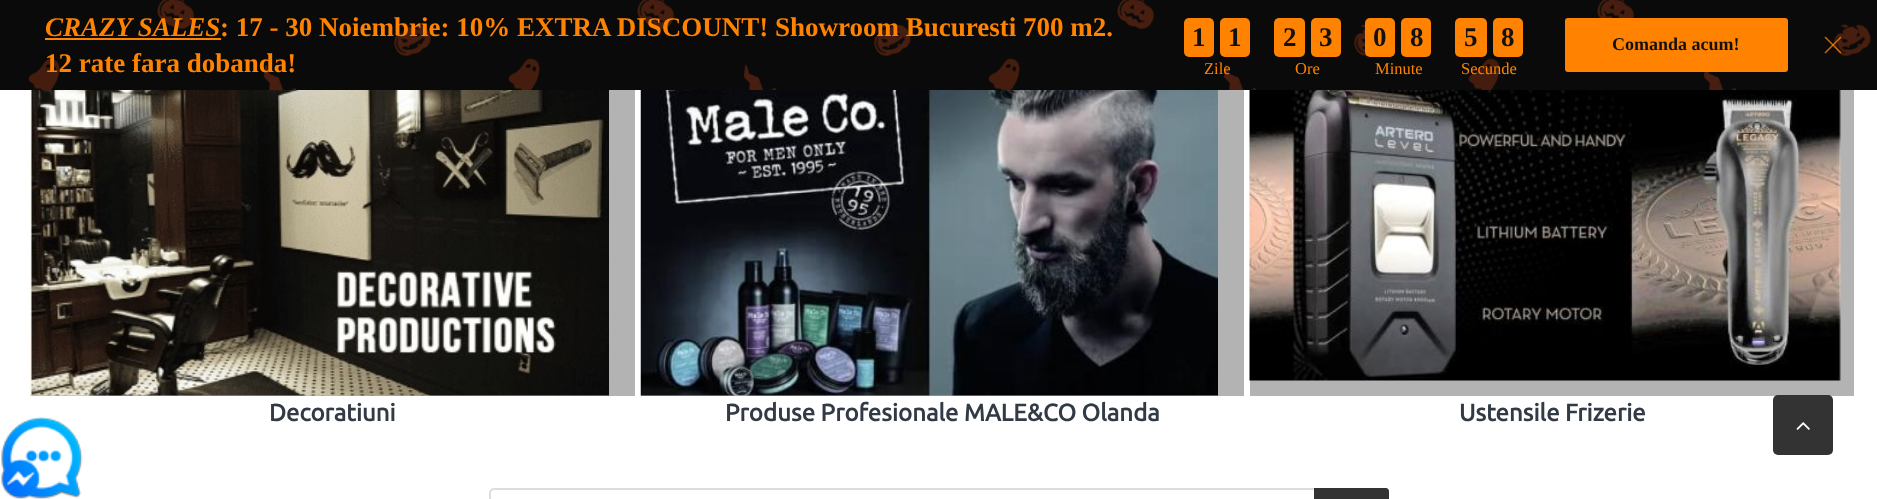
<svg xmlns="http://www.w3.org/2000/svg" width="1877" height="499">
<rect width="100%" height="100%" fill="#fff"/>
<rect width="1877" height="90" fill="#0a0a0a"/>
<image x="28" y="0" width="1843" height="90" href="media/1.png"/>
<text x="45" y="36" style="font-family:Liberation Serif;font-size:27px;font-weight:bold;font-style:italic;fill:#ff8300">CRAZY SALES</text>
<rect x="45" y="38" width="176" height="2" fill="#ff8300"/>
<text x="220" y="36" style="font-family:Liberation Serif;font-size:27px;font-weight:bold;fill:#ff8300">: 17 - 30 Noiembrie: 10% EXTRA DISCOUNT! Showroom Bucuresti 700 m2.</text>
<text x="45" y="72" style="font-family:Liberation Serif;font-size:27px;font-weight:bold;fill:#ff8300">12 rate fara dobanda!</text>
<rect x="1184" y="18" width="30" height="39" rx="5" fill="#ff8300"/>
<text x="1192" y="46" style="font-family:Liberation Serif;font-size:27px;font-weight:bold;fill:#111">1</text>
<rect x="1220" y="18" width="30" height="39" rx="5" fill="#ff8300"/>
<text x="1228" y="46" style="font-family:Liberation Serif;font-size:27px;font-weight:bold;fill:#111">1</text>
<text x="1204" y="74" style="font-family:Liberation Serif;font-size:16.5px;fill:#ff8300">Zile</text>
<rect x="1274" y="18" width="31" height="39" rx="5" fill="#ff8300"/>
<text x="1283" y="46" style="font-family:Liberation Serif;font-size:27px;font-weight:bold;fill:#111">2</text>
<rect x="1311" y="18" width="30" height="39" rx="5" fill="#ff8300"/>
<text x="1319" y="46" style="font-family:Liberation Serif;font-size:27px;font-weight:bold;fill:#111">3</text>
<text x="1295" y="74" style="font-family:Liberation Serif;font-size:16.5px;fill:#ff8300">Ore</text>
<rect x="1365" y="18" width="30" height="39" rx="5" fill="#ff8300"/>
<text x="1373" y="46" style="font-family:Liberation Serif;font-size:27px;font-weight:bold;fill:#111">0</text>
<rect x="1401" y="18" width="30" height="39" rx="5" fill="#ff8300"/>
<text x="1410" y="46" style="font-family:Liberation Serif;font-size:27px;font-weight:bold;fill:#111">8</text>
<text x="1375" y="74" style="font-family:Liberation Serif;font-size:16.5px;fill:#ff8300">Minute</text>
<rect x="1455" y="18" width="32" height="39" rx="5" fill="#ff8300"/>
<text x="1464" y="46" style="font-family:Liberation Serif;font-size:27px;font-weight:bold;fill:#111">5</text>
<rect x="1493" y="18" width="30" height="39" rx="5" fill="#ff8300"/>
<text x="1501" y="46" style="font-family:Liberation Serif;font-size:27px;font-weight:bold;fill:#111">8</text>
<text x="1461" y="74" style="font-family:Liberation Serif;font-size:16.5px;fill:#ff8300">Secunde</text>
<rect x="1565" y="18" width="223" height="54" rx="3" fill="#ff8300"/>
<text x="1612" y="50" style="font-family:Liberation Serif;font-size:18px;font-weight:bold;fill:#111">Comanda acum!</text>
<path d="M1825.5 36.5l16 16l-1 1l-16-16z" fill="#ff8300cc"/>
<path d="M1824.5 52.5l16-16l1 1l-16 16z" fill="#ff8300cc"/>
<rect x="30" y="90" width="605" height="306" fill="#b3b3b3"/>
<image x="30" y="90" width="579" height="306" href="media/2.png"/>
<text x="269" y="421" style="font-family:Ubuntu;font-size:24px;font-weight:bold;fill:#323a45">Decoratiuni</text>
<rect x="641" y="90" width="603" height="306" fill="#b3b3b3"/>
<image x="640" y="90" width="578" height="306" href="media/3.png"/>
<text x="725" y="421" style="font-family:Ubuntu;font-size:24px;font-weight:bold;fill:#323a45">Produse Profesionale MALE&amp;CO Olanda</text>
<rect x="1250" y="90" width="604" height="306" fill="#b3b3b3"/>
<image x="1249" y="90" width="592" height="291" href="media/4.png"/>
<text x="1459" y="421" style="font-family:Ubuntu;font-size:24px;font-weight:bold;fill:#323a45">Ustensile Frizerie</text>
<rect x="1773" y="395" width="60" height="60" rx="5" fill="#333"/>
<image x="1796" y="422" width="14" height="8" href="media/5.png"/>
<rect x="490" y="489" width="898" height="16" rx="4" fill="none" stroke="#ddd" stroke-width="2"/>
<path d="M1314 488h72c1.5 0 3 1.5 3 3v8c0 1.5-1.5 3-3 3h-72z" fill="#333"/>
<image x="1" y="417" width="82" height="82" href="media/6.png"/>
</svg>
